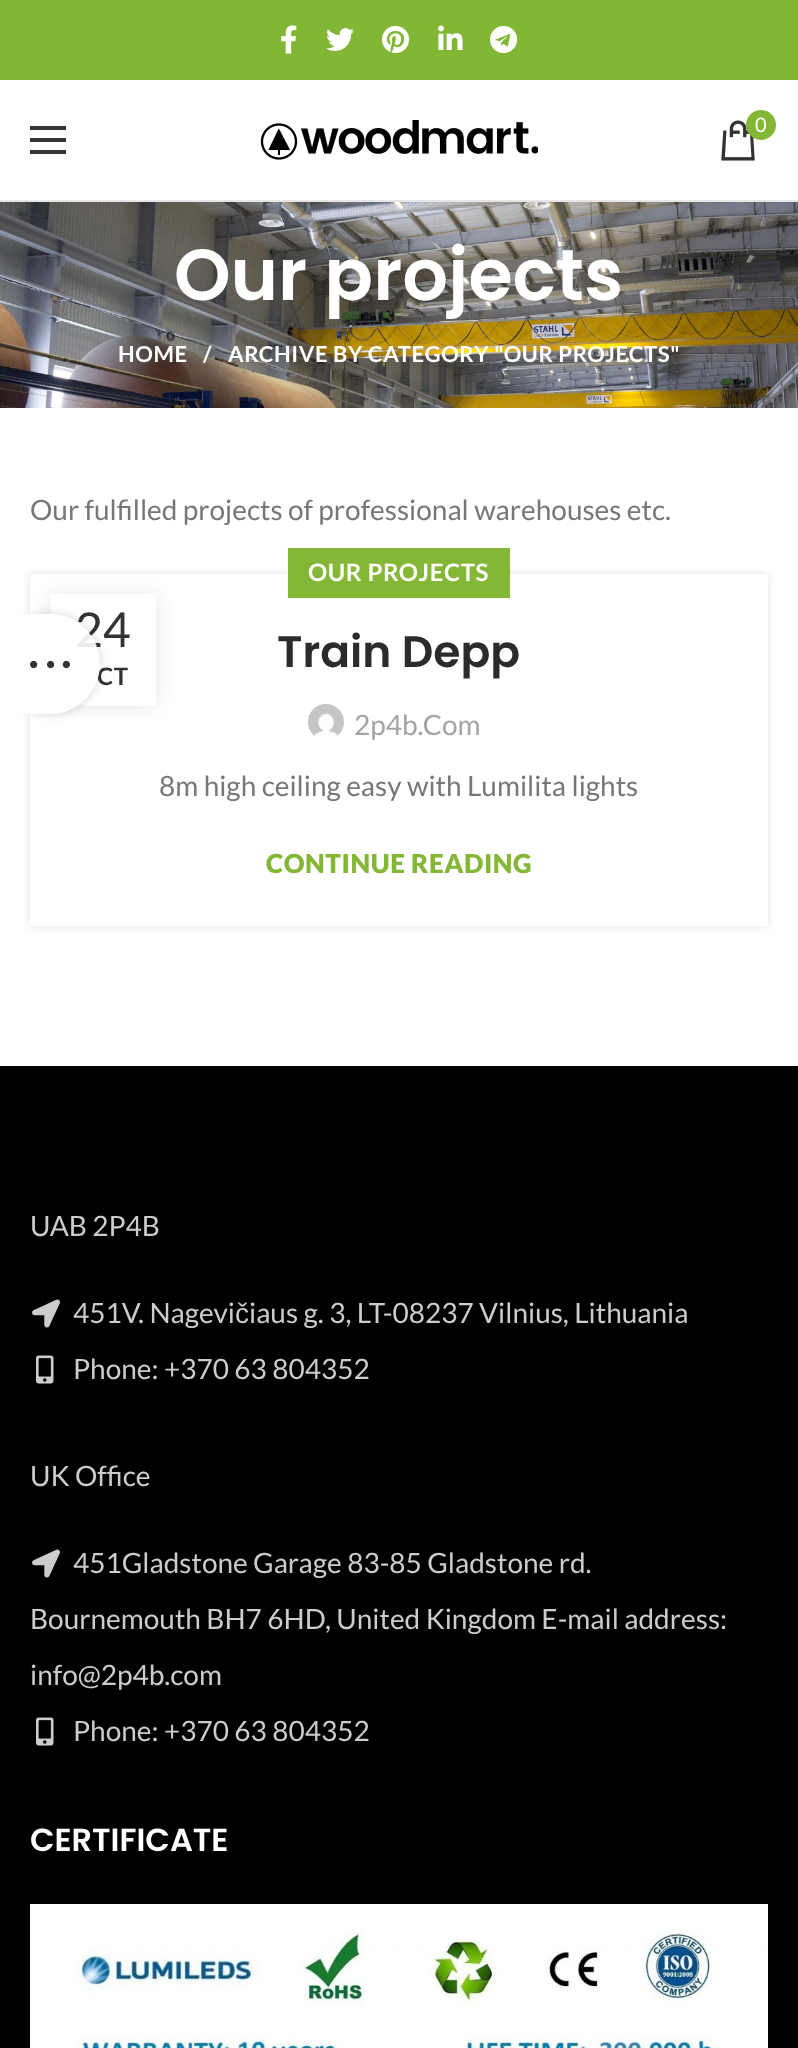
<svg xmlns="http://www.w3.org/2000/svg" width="798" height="2048">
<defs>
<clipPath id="clip1"><path d="M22 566h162v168h-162zm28 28h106v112h-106z" clip-rule="evenodd"/></clipPath>
<clipPath id="clip2"><path d="M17 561h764v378h-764zm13 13h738v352h-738z" clip-rule="evenodd"/></clipPath>
<clipPath id="clip3"><path d="M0 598h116v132h-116zm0 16h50c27.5 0 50 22.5 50 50c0 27.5-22.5 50-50 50h-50z" clip-rule="evenodd"/></clipPath>
</defs>
<rect width="100%" height="100%" fill="#fff"/>
<rect width="798" height="80" fill="#82b735"/>
<image x="281" y="25" width="16" height="29" href="media/1.png"/>
<image x="326" y="28" width="28" height="23" href="media/2.png"/>
<image x="382" y="25" width="28" height="29" href="media/3.png"/>
<image x="438" y="25" width="25" height="25" href="media/4.png"/>
<image x="490" y="25" width="28" height="29" href="media/5.png"/>
<rect y="200" width="798" height="2" fill="#e6e6e6"/>
<rect x="30" y="138" width="36" height="4" fill="#333"/>
<rect x="30" y="126" width="36" height="4" fill="#333"/>
<rect x="30" y="150" width="36" height="4" fill="#333"/>
<image x="260" y="120" width="278" height="40" href="media/6.png"/>
<image x="721" y="120" width="34" height="41" href="media/7.png"/>
<circle cx="761" cy="125" r="15" fill="#83b735"/>
<text x="755" y="132" style="font-family:Lato;font-size:20px;fill:#fff">0</text>
<image x="0" y="202" width="798" height="206" href="media/8.png"/>
<text x="174" y="300" style="font-family:Poppins;font-size:72px;font-weight:600;fill:#fff">Our projects</text>
<text x="118" y="362" style="font-family:Lato;font-size:22px;font-weight:bold;letter-spacing:0.6px;fill:#fff">HOME</text>
<text x="203" y="362" style="font-family:Lato;font-size:22px;font-weight:bold;letter-spacing:0.6px;fill:#fff">/</text>
<text x="228" y="362" style="font-family:Lato;font-size:22px;font-weight:bold;letter-spacing:0.6px;fill:#fff">ARCHIVE BY CATEGORY "OUR PROJECTS"</text>
<text x="30" y="520" style="font-family:Lato;font-size:28px;fill:#777">Our fulfilled projects of professional warehouses etc.</text>
<g clip-path="url(#clip1)">
<rect x="50" y="594" width="106" height="112" fill="#0000001a" filter="blur(9px)"/>
</g>
<g clip-path="url(#clip2)">
<rect x="30" y="574" width="738" height="352" fill="#0000001f" filter="blur(4px)"/>
</g>
<text x="75" y="647" style="font-family:Lato;font-size:48px;fill:#333">24</text>
<text x="97" y="685" style="font-family:Lato;font-size:24px;font-weight:bold;letter-spacing:0.6px;fill:#333">CT</text>
<rect x="288" y="548" width="222" height="50" fill="#83b735"/>
<text x="308" y="581" style="font-family:Lato;font-size:24px;font-weight:bold;letter-spacing:0.6px;fill:#fff">OUR PROJECTS</text>
<text x="277" y="667" style="font-family:Poppins;font-size:44px;font-weight:600;fill:#2d2a2a">Train Depp</text>
<image x="308" y="704" width="36" height="33" href="media/9.png"/>
<text x="354" y="735" style="font-family:Lato;font-size:28px;fill:#a4a4a4">2p4b.Com</text>
<text x="159" y="796" style="font-family:Lato;font-size:28px;fill:#777">8m high ceiling easy with Lumilita lights</text>
<text x="266" y="873" style="font-family:Lato;font-size:26px;font-weight:900;letter-spacing:0.6px;fill:#83b735">CONTINUE READING</text>
<rect y="1066" width="798" height="982" fill="#000"/>
<text x="30" y="1236" style="font-family:Lato;font-size:28px;fill:#ccc">UAB 2P4B</text>
<image x="32" y="1299" width="28" height="29" href="media/10.png"/>
<text x="73" y="1323" style="font-family:Lato;font-size:28px;fill:#ccc">451V. Nagevi</text>
<text x="235" y="1323" style="font-family:Liberation Sans;font-size:28px;fill:#ccc">č</text>
<text x="249" y="1323" style="font-family:Lato;font-size:28px;fill:#ccc">iaus g. 3, LT-08237 Vilnius, Lithuania</text>
<image x="36" y="1355" width="18" height="29" href="media/11.png"/>
<text x="73" y="1379" style="font-family:Lato;font-size:28px;fill:#ccc">Phone: +370 63 804352</text>
<text x="30" y="1486" style="font-family:Lato;font-size:28px;fill:#ccc">UK Office</text>
<image x="32" y="1549" width="28" height="29" href="media/10.png"/>
<text x="73" y="1573" style="font-family:Lato;font-size:28px;fill:#ccc">451Gladstone Garage 83-85 Gladstone rd.</text>
<text x="30" y="1629" style="font-family:Lato;font-size:28px;fill:#ccc">Bournemouth BH7 6HD, United Kingdom E-mail address:</text>
<text x="30" y="1685" style="font-family:Lato;font-size:28px;fill:#ccc">info@2p4b.com</text>
<image x="36" y="1717" width="18" height="29" href="media/11.png"/>
<text x="73" y="1741" style="font-family:Lato;font-size:28px;fill:#ccc">Phone: +370 63 804352</text>
<text x="30" y="1851" style="font-family:Poppins;font-size:32px;font-weight:600;fill:#fff">CERTIFICATE</text>
<image x="30" y="1904" width="738" height="144" href="media/12.png"/>
<g clip-path="url(#clip3)">
<rect y="614" width="100" height="100" rx="50" fill="#0000002b" filter="blur(5px)"/>
</g>
<path d="M0 614h50c27.5 0 50 22.5 50 50c0 27.5-22.5 50-50 50h-50z" fill="#ffffffe6"/>
<image x="30" y="660" width="40" height="9" href="media/13.png"/>
</svg>
